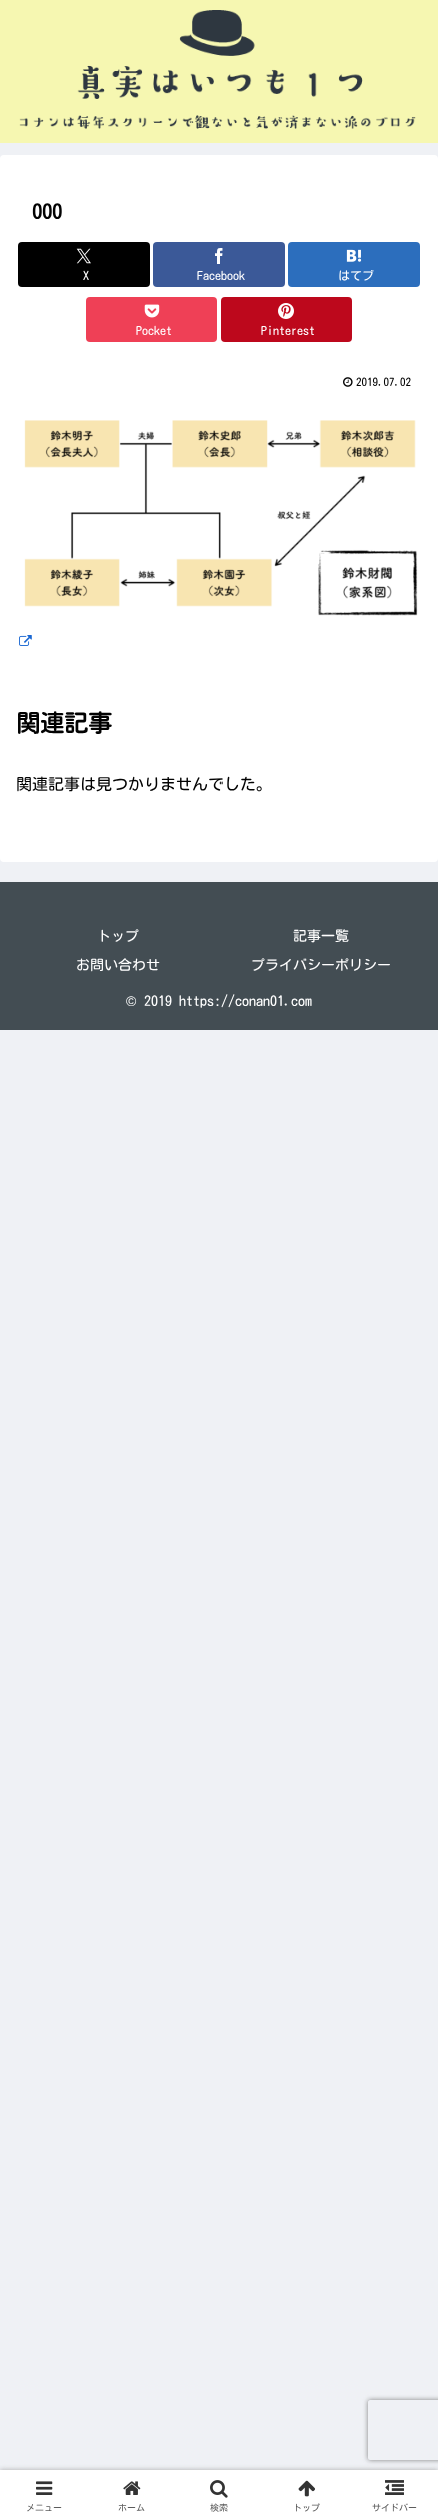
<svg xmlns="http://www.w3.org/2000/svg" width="438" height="2520">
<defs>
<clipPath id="clip1"><path d="M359 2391h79v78h-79zm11 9h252c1 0 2 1 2 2v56c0 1-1 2-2 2h-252c-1 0-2-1-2-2v-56c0-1 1-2 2-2z" clip-rule="evenodd"/></clipPath>
</defs>
<rect width="100%" height="100%" fill="#eff1f5"/>
<rect width="438" height="143" fill="#f6f7b1"/>
<image x="19" y="10" width="397" height="119" href="media/1.png"/>
<rect y="155" width="438" height="707" rx="4" fill="#fff"/>
<text x="32" y="219" style="font-family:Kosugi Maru;font-size:20px;font-weight:bold;fill:#020202">000</text>
<rect x="18" y="242" width="132" height="45" rx="4" fill="#000"/>
<image x="76" y="248" width="15" height="16" href="media/2.png"/>
<text x="83" y="280" style="font-family:Kosugi Maru;font-size:12px;fill:#fff">X</text>
<rect x="153" y="242" width="132" height="45" rx="4" fill="#3b5998"/>
<image x="215" y="248" width="8" height="16" href="media/3.png"/>
<text x="197" y="280" style="font-family:Kosugi Maru;font-size:12px;fill:#fff">Facebook</text>
<rect x="288" y="242" width="132" height="45" rx="4" fill="#2c6ebd"/>
<image x="346" y="249" width="16" height="13" href="media/4.png"/>
<text x="338" y="280" style="font-family:Kosugi Maru;font-size:12px;fill:#fff">はてブ</text>
<rect x="86" y="297" width="131" height="45" rx="4" fill="#ef4056"/>
<image x="144" y="304" width="16" height="14" href="media/5.png"/>
<text x="136" y="335" style="font-family:Kosugi Maru;font-size:12px;fill:#fff">Pocket</text>
<rect x="221" y="297" width="131" height="45" rx="4" fill="#bd081c"/>
<image x="278" y="303" width="16" height="16" href="media/6.png"/>
<text x="261" y="335" style="font-family:Kosugi Maru;font-size:12px;fill:#fff">Pinterest</text>
<image x="343" y="377" width="10" height="10" href="media/7.png"/>
<text x="356" y="386" style="font-family:Kosugi Maru;font-size:11px;fill:#020202">2019.07.02</text>
<image x="24" y="420" width="394" height="196" href="media/8.png"/>
<image x="19" y="635" width="13" height="11" href="media/9.png"/>
<text x="16" y="732" style="font-family:Kosugi Maru;font-size:24px;font-weight:bold;fill:#020202">関連記事</text>
<text x="16" y="790" style="font-family:Kosugi Maru;font-size:16px;fill:#020202">関連記事は見つかりませんでした。</text>
<rect y="882" width="438" height="148" fill="#434d53"/>
<text x="97" y="941" style="font-family:Kosugi Maru;font-size:14px;fill:#fff">トップ</text>
<text x="293" y="941" style="font-family:Kosugi Maru;font-size:14px;fill:#fff">記事一覧</text>
<text x="76" y="970" style="font-family:Kosugi Maru;font-size:14px;fill:#fff">お問い合わせ</text>
<text x="251" y="970" style="font-family:Kosugi Maru;font-size:14px;fill:#fff">プライバシーポリシー</text>
<text x="126" y="1006" style="font-family:Liberation Sans;font-size:14px;fill:#fff">©</text>
<text x="144" y="1006" style="font-family:Kosugi Maru;font-size:14px;fill:#fff">2019 https://conan01.com</text>
<rect y="2470" width="438" height="50" fill="#a9a9a9" filter="blur(2.5px)"/>
<rect y="2470" width="438" height="50" fill="#fff"/>
<image x="36" y="2481" width="17" height="14" href="media/10.png"/>
<text x="26" y="2511" style="font-family:Kosugi Maru;font-size:9px;fill:#5c5c5c">メニュー</text>
<image x="123" y="2481" width="18" height="14" href="media/11.png"/>
<text x="118" y="2511" style="font-family:Kosugi Maru;font-size:9px;fill:#5c5c5c">ホーム</text>
<image x="210" y="2480" width="18" height="18" href="media/12.png"/>
<text x="210" y="2511" style="font-family:Kosugi Maru;font-size:9px;fill:#5c5c5c">検索</text>
<image x="298" y="2480" width="17" height="17" href="media/13.png"/>
<text x="293" y="2511" style="font-family:Kosugi Maru;font-size:9px;fill:#5c5c5c">トップ</text>
<image x="385" y="2480" width="19" height="15" href="media/14.png"/>
<text x="372" y="2511" style="font-family:Kosugi Maru;font-size:9px;fill:#5c5c5c">サイドバー</text>
<g clip-path="url(#clip1)">
<rect x="368" y="2400" width="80" height="60" rx="2" fill="#808080" filter="blur(2.5px)"/>
</g>
</svg>
